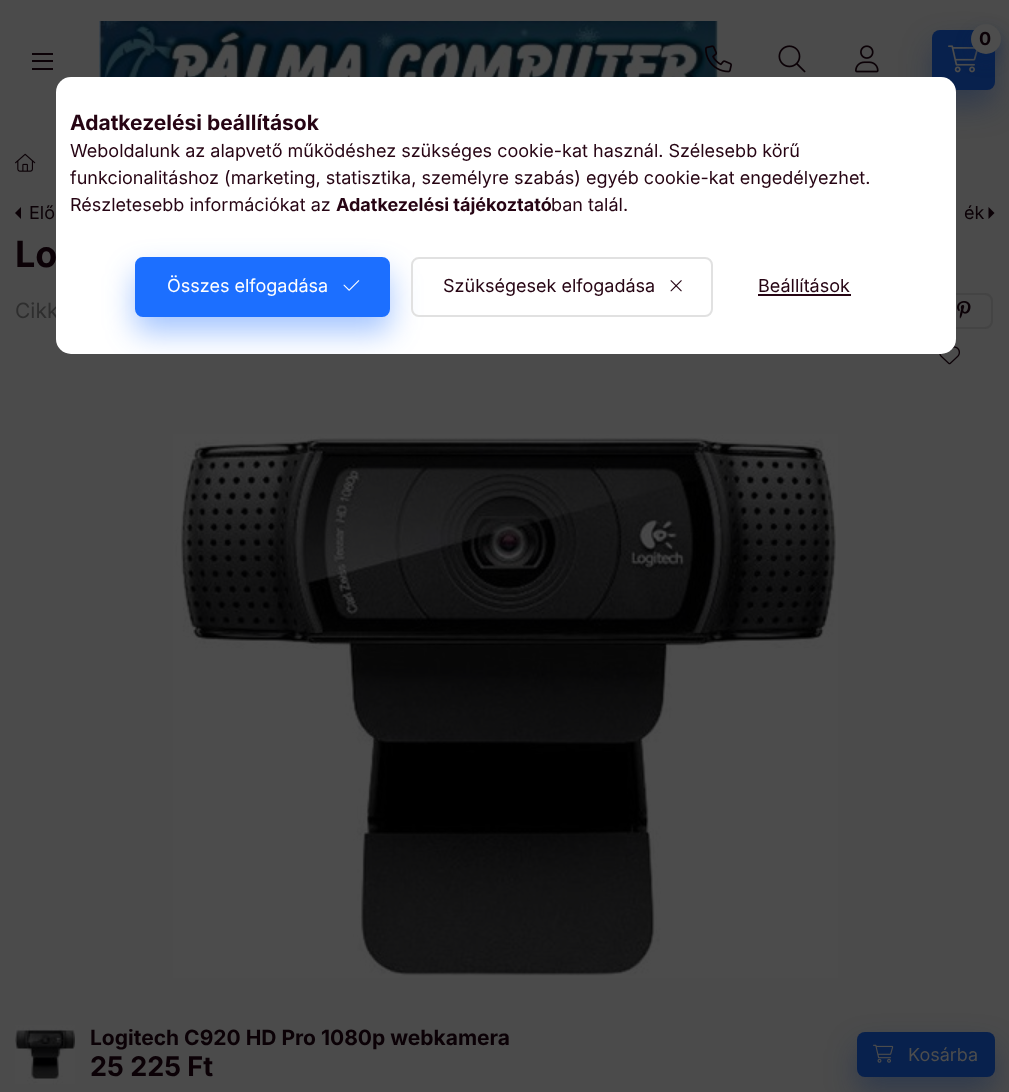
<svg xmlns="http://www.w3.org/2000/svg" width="1009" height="1092">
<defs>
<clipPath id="clip1"><rect x="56" y="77" width="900" height="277" rx="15"/></clipPath>
</defs>
<rect width="100%" height="100%" fill="#4b4b4b"/>
<image x="99" y="21" width="620" height="56" href="media/1.png"/>
<rect x="32" y="53" width="21" height="2" fill="#0b0106"/>
<rect x="32" y="60" width="21" height="2" fill="#0b0106"/>
<rect x="32" y="68" width="21" height="2" fill="#0b0106"/>
<image x="705" y="45" width="27" height="28" href="media/2.png"/>
<rect x="932" y="45" width="63" height="60" rx="8" fill="#08214d66" filter="blur(15px)"/>
<rect x="932" y="30" width="63" height="60" rx="8" fill="#08214d"/>
<image x="948" y="45" width="30" height="28" href="media/3.png"/>
<rect x="971" y="32" width="30" height="30" rx="15" fill="#08214d66" filter="blur(7.5px)"/>
<circle cx="986" cy="39" r="15" fill="#4d4d4d"/>
<text x="979" y="45" style="font-family:Inter;font-size:18px;font-weight:bold;fill:#0b0106">0</text>
<image x="778" y="45" width="28" height="28" href="media/4.png"/>
<image x="855" y="45" width="24" height="28" href="media/5.png"/>
<image x="15" y="153" width="21" height="19" href="media/6.png"/>
<path d="M21 219v-12l-6 6z" fill="#0b0106"/>
<text x="29" y="219" style="font-family:Inter;font-size:18px;fill:#0b0106">Elő</text>
<text x="964" y="219" style="font-family:Inter;font-size:18px;fill:#0b0106">ék</text>
<path d="M988.5 219v-12l6 6z" fill="#0b0106"/>
<text x="15" y="267" style="font-family:Inter;font-size:36px;font-weight:bold;fill:#0b0106">Lo</text>
<text x="15" y="318" style="font-family:Inter;font-size:21px;fill:#2e2e2e">Cikk</text>
<rect x="934" y="294" width="58" height="34" rx="7" fill="none" stroke="#444" stroke-width="2"/>
<image x="957" y="301" width="14" height="18" href="media/7.png"/>
<image x="939" y="346" width="21" height="19" href="media/8.png"/>
<image x="173" y="434" width="666" height="544" href="media/9.png"/>
<image x="15" y="1025" width="60" height="60" href="media/10.png"/>
<text x="90" y="1045" style="font-family:Inter;font-size:21px;font-weight:bold;fill:#0b0106">Logitech C920 HD Pro 1080p webkamera</text>
<text x="90" y="1076" style="font-family:Inter;font-size:27px;font-weight:bold;fill:#0b0106">25 225 Ft</text>
<rect x="857" y="1047" width="138" height="45" rx="8" fill="#08214d66" filter="blur(15px)"/>
<rect x="857" y="1032" width="138" height="45" rx="8" fill="#08214d"/>
<image x="873" y="1044" width="21" height="19" href="media/11.png"/>
<text x="908" y="1061" style="font-family:Inter;font-size:18px;fill:#4d4d4d">Kosárba</text>
<rect x="56" y="77" width="900" height="277" rx="15" fill="#fff"/>
<text x="70" y="130" style="font-family:Inter;font-size:21px;font-weight:bold;fill:#260413">Adatkezelési beállítások</text>
<text x="70" y="157" style="font-family:Inter;font-size:18px;fill:#260413">Weboldalunk az alapvető működéshez szükséges cookie-kat használ. Szélesebb körű</text>
<text x="70" y="184" style="font-family:Inter;font-size:18px;fill:#260413">funkcionalitáshoz (marketing, statisztika, személyre szabás) egyéb cookie-kat engedélyezhet.</text>
<text x="70" y="211" style="font-family:Inter;font-size:18px;fill:#260413">Részletesebb információkat az</text>
<text x="336" y="211" style="font-family:Inter;font-size:18px;font-weight:bold;fill:#260413">Adatkezelési tájékoztató</text>
<text x="551" y="211" style="font-family:Inter;font-size:18px;fill:#260413">ban talál.</text>
<g clip-path="url(#clip1)">
<rect x="135" y="272" width="255" height="60" rx="8" fill="#1c6fff66" filter="blur(15px)"/>
</g>
<rect x="136" y="258" width="253" height="58" rx="7" fill="#1c6fff" stroke="#1c6fff" stroke-width="2"/>
<text x="167" y="292" style="font-family:Inter;font-size:18px;fill:#fff">Összes elfogadása</text>
<image x="343" y="280" width="17" height="11" href="media/12.png"/>
<rect x="412" y="258" width="300" height="58" rx="7" fill="none" stroke="#e1e1e1" stroke-width="2"/>
<text x="443" y="292" style="font-family:Inter;font-size:18px;fill:#260413">Szükségesek elfogadása</text>
<image x="670" y="280" width="12" height="12" href="media/13.png"/>
<text x="758" y="292" style="font-family:Inter;font-size:18px;fill:#260413">Beállítások</text>
<rect x="758" y="294" width="93" height="2" fill="#260413"/>
</svg>
